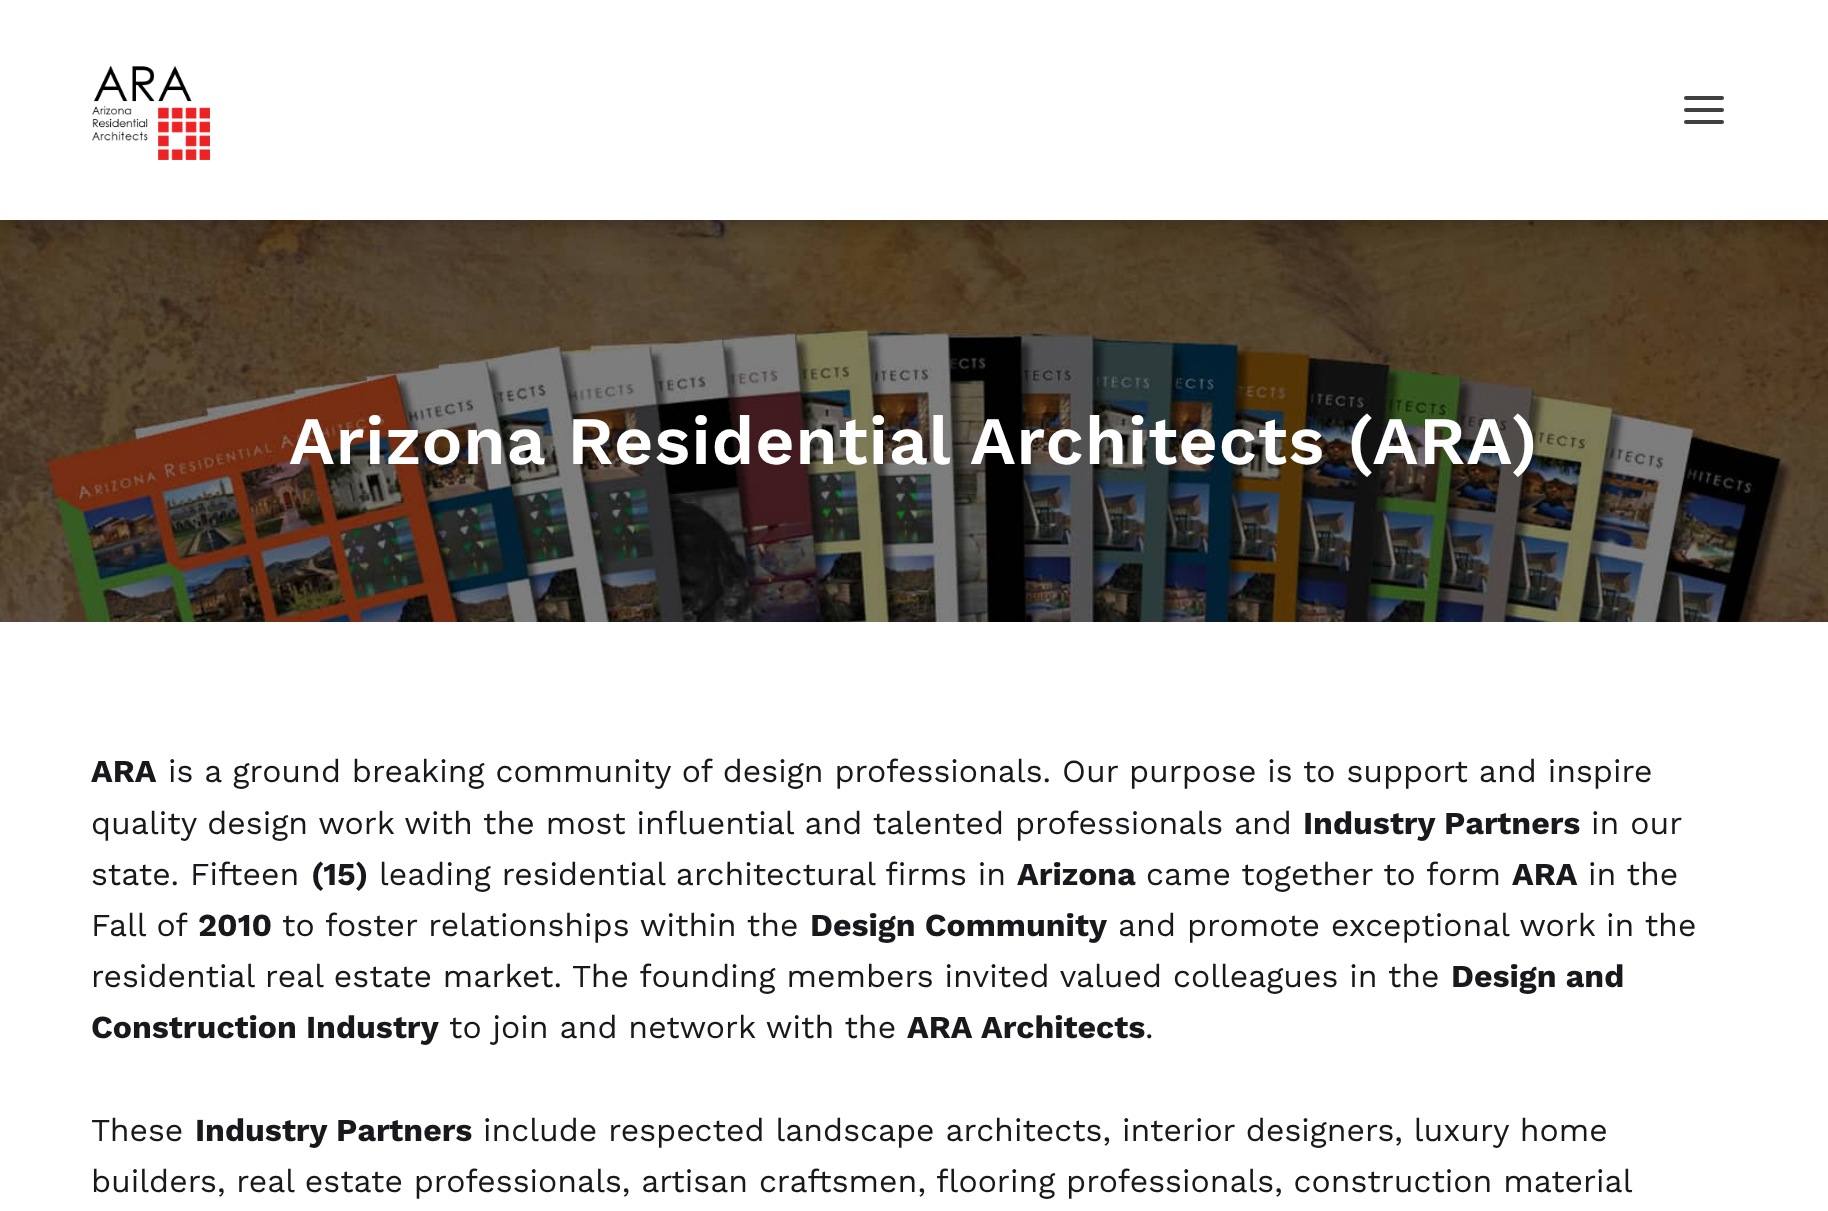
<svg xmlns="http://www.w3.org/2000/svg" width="1828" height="1211">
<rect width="100%" height="100%" fill="#fff"/>
<image x="0" y="220" width="1828" height="402" href="media/2.png"/>
<rect x="2" y="2" width="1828" height="220" fill="#00000045" filter="blur(10px)"/>
<rect width="1828" height="220" fill="#fff"/>
<image x="92" y="66" width="118" height="94" href="media/1.png"/>
<rect x="1684" y="96" width="40" height="4" rx="2" fill="#404040"/>
<rect x="1684" y="108" width="40" height="4" rx="2" fill="#404040"/>
<rect x="1684" y="120" width="40" height="4" rx="2" fill="#404040"/>
<text x="289" y="464" style="font-family:Work Sans;font-size:68px;font-weight:600;letter-spacing:1px;fill:#fff">Arizona Residential Architects (ARA)</text>
<text x="91" y="782" style="font-family:Work Sans;font-size:32px;font-weight:bold;fill:#18181d">ARA</text>
<text x="168" y="782" style="font-family:Work Sans;font-size:32px;fill:#18181d">is a ground breaking community of design professionals. Our purpose is to support and inspire</text>
<text x="91" y="834" style="font-family:Work Sans;font-size:32px;fill:#18181d">quality design work with the most influential and talented professionals and</text>
<text x="1303" y="834" style="font-family:Work Sans;font-size:32px;font-weight:bold;fill:#18181d">Industry Partners</text>
<text x="1591" y="834" style="font-family:Work Sans;font-size:32px;fill:#18181d">in our</text>
<text x="91" y="885" style="font-family:Work Sans;font-size:32px;fill:#18181d">state. Fifteen</text>
<text x="311" y="885" style="font-family:Work Sans;font-size:32px;font-weight:bold;fill:#18181d">(15)</text>
<text x="379" y="885" style="font-family:Work Sans;font-size:32px;fill:#18181d">leading residential architectural firms in</text>
<text x="1017" y="885" style="font-family:Work Sans;font-size:32px;font-weight:bold;fill:#18181d">Arizona</text>
<text x="1146" y="885" style="font-family:Work Sans;font-size:32px;fill:#18181d">came together to form</text>
<text x="1512" y="885" style="font-family:Work Sans;font-size:32px;font-weight:bold;fill:#18181d">ARA</text>
<text x="1588" y="885" style="font-family:Work Sans;font-size:32px;fill:#18181d">in the</text>
<text x="91" y="936" style="font-family:Work Sans;font-size:32px;fill:#18181d">Fall of</text>
<text x="198" y="936" style="font-family:Work Sans;font-size:32px;font-weight:bold;fill:#18181d">2010</text>
<text x="282" y="936" style="font-family:Work Sans;font-size:32px;fill:#18181d">to foster relationships within the</text>
<text x="810" y="936" style="font-family:Work Sans;font-size:32px;font-weight:bold;fill:#18181d">Design Community</text>
<text x="1118" y="936" style="font-family:Work Sans;font-size:32px;fill:#18181d">and promote exceptional work in the</text>
<text x="91" y="987" style="font-family:Work Sans;font-size:32px;fill:#18181d">residential real estate market. The founding members invited valued colleagues in the</text>
<text x="1451" y="987" style="font-family:Work Sans;font-size:32px;font-weight:bold;fill:#18181d">Design and</text>
<text x="91" y="1038" style="font-family:Work Sans;font-size:32px;font-weight:bold;fill:#18181d">Construction Industry</text>
<text x="449" y="1038" style="font-family:Work Sans;font-size:32px;fill:#18181d">to join and network with the</text>
<text x="907" y="1038" style="font-family:Work Sans;font-size:32px;font-weight:bold;fill:#18181d">ARA</text>
<text x="981" y="1038" style="font-family:Work Sans;font-size:32px;font-weight:bold;fill:#18181d">Architects</text>
<text x="1145" y="1038" style="font-family:Work Sans;font-size:32px;fill:#18181d">.</text>
<text x="91" y="1141" style="font-family:Work Sans;font-size:32px;fill:#18181d">These</text>
<text x="195" y="1141" style="font-family:Work Sans;font-size:32px;font-weight:bold;fill:#18181d">Industry Partners</text>
<text x="483" y="1141" style="font-family:Work Sans;font-size:32px;fill:#18181d">include respected landscape architects, interior designers, luxury home</text>
<text x="91" y="1192" word-spacing="-0.1" style="font-family:Work Sans;font-size:32px;fill:#18181d">builders, real estate professionals, artisan craftsmen, flooring professionals, construction material</text>
</svg>
